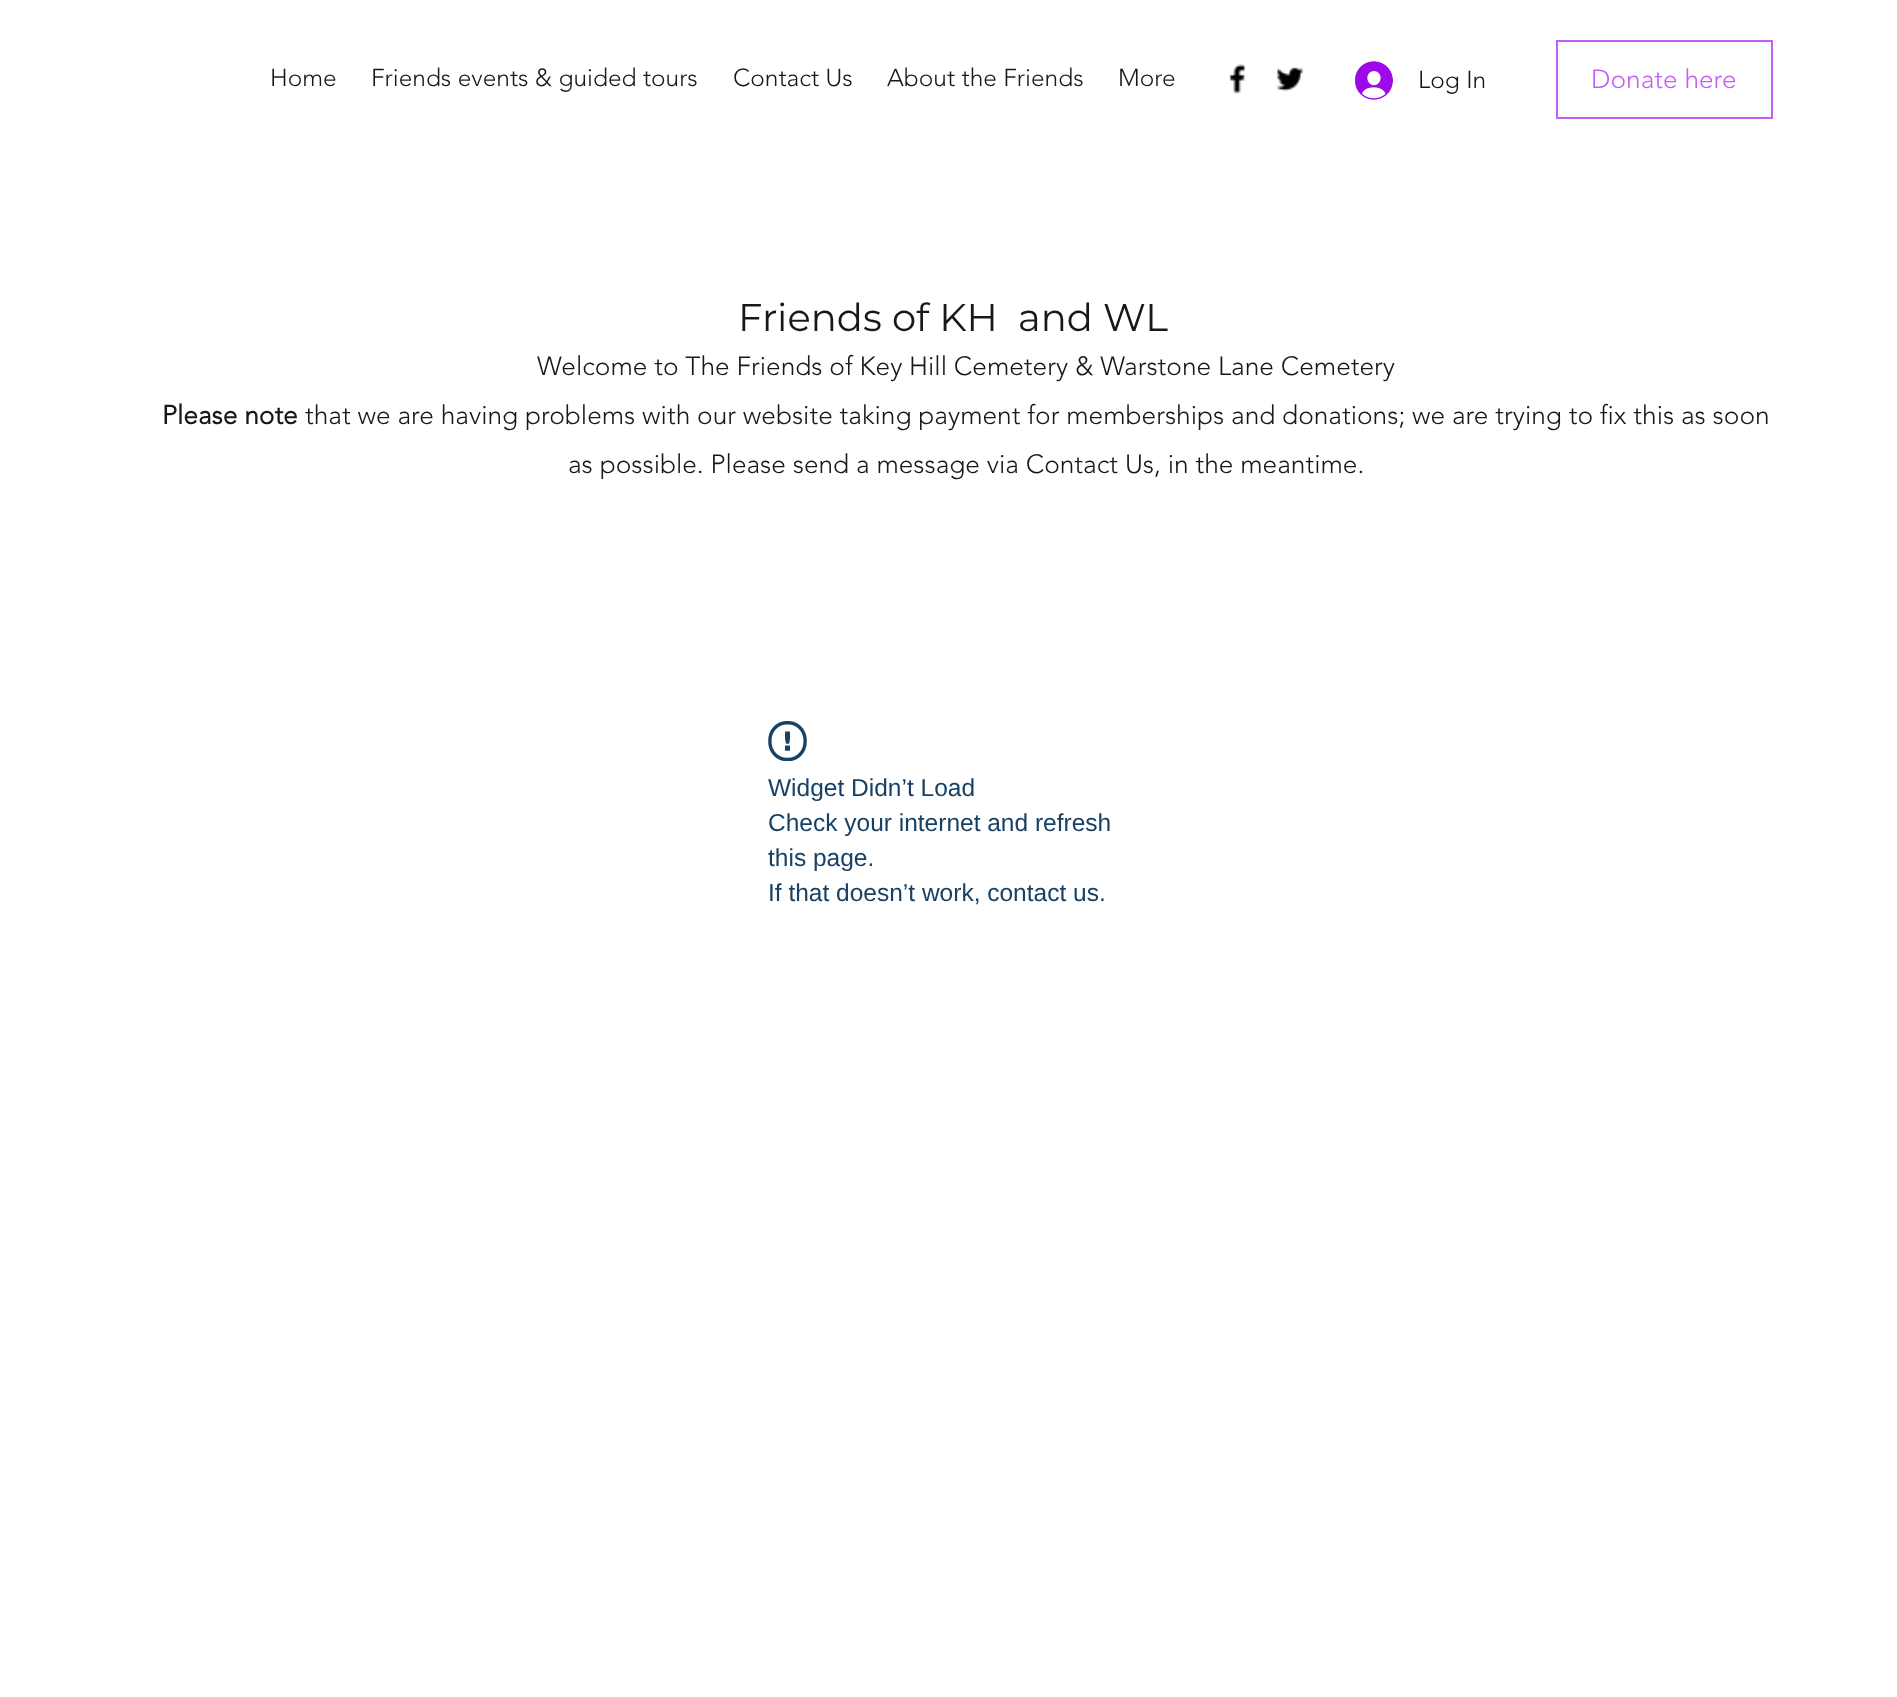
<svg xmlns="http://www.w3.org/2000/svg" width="1897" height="1697">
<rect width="100%" height="100%" fill="#fff"/>
<text x="270" y="86" style="font-family:'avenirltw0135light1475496';font-size:24.5px;font-weight:300;fill:#181818">Home</text>
<text x="371" y="86" style="font-family:'avenirltw0135light1475496';font-size:24.5px;font-weight:300;fill:#181818">Friends events &amp; guided tours</text>
<text x="733" y="86" style="font-family:'avenirltw0135light1475496';font-size:24.5px;font-weight:300;fill:#181818">Contact Us</text>
<text x="887" y="86" style="font-family:'avenirltw0135light1475496';font-size:24.5px;font-weight:300;fill:#181818">About the Friends</text>
<text x="1118" y="86" style="font-family:'avenirltw0135light1475496';font-size:24.5px;font-weight:300;fill:#181818">More</text>
<image x="1229" y="64" width="17" height="30" href="media/1.png"/>
<image x="1276" y="66" width="28" height="26" href="media/2.png"/>
<image x="1355" y="61" width="38" height="39" href="media/3.png"/>
<text x="1418" y="88" style="font-family:'avenirltw0135light1475496';font-size:24.5px;font-weight:300;fill:#181818">Log In</text>
<rect x="1557" y="41" width="215" height="77" fill="none" stroke="#c55df9" stroke-width="2"/>
<text x="1591" y="88" style="font-family:'avenirltw0135light1475496';font-size:26.25px;font-weight:300;fill:#c55df9">Donate here</text>
<text x="738" y="331" style="font-family:Montserrat;font-size:38.5px;fill:#181818" xml:space="preserve">Friends of KH  and WL</text>
<text x="537" y="375" style="font-family:'avenirltw0135light1475496';font-size:26.25px;font-weight:300;fill:#181818">Welcome to The Friends of Key Hill Cemetery &amp; Warstone Lane Cemetery</text>
<text x="162" y="424" style="font-family:'avenirltw0135light1475496';font-size:26.25px;font-weight:bold;fill:#181818">Please note</text>
<text x="305" y="424" style="font-family:'avenirltw0135light1475496';font-size:26.25px;font-weight:300;fill:#181818">that we are having problems with our website taking payment for memberships and donations; we are trying to fix this as soon</text>
<text x="568" y="473" style="font-family:'avenirltw0135light1475496';font-size:26.25px;font-weight:300;fill:#181818">as possible. Please send a message via Contact Us, in the meantime.</text>
<image x="768" y="721" width="39" height="40" href="media/4.png"/>
<text x="768" y="796" style="font-family:Liberation Sans;font-size:24.5px;fill:#174165">Widget Didn’t Load</text>
<text x="768" y="831" style="font-family:Liberation Sans;font-size:24.5px;fill:#174165">Check your internet and refresh</text>
<text x="768" y="866" style="font-family:Liberation Sans;font-size:24.5px;fill:#174165">this page.</text>
<text x="768" y="901" style="font-family:Liberation Sans;font-size:24.5px;fill:#174165">If that doesn’t work, contact us.</text>
</svg>
